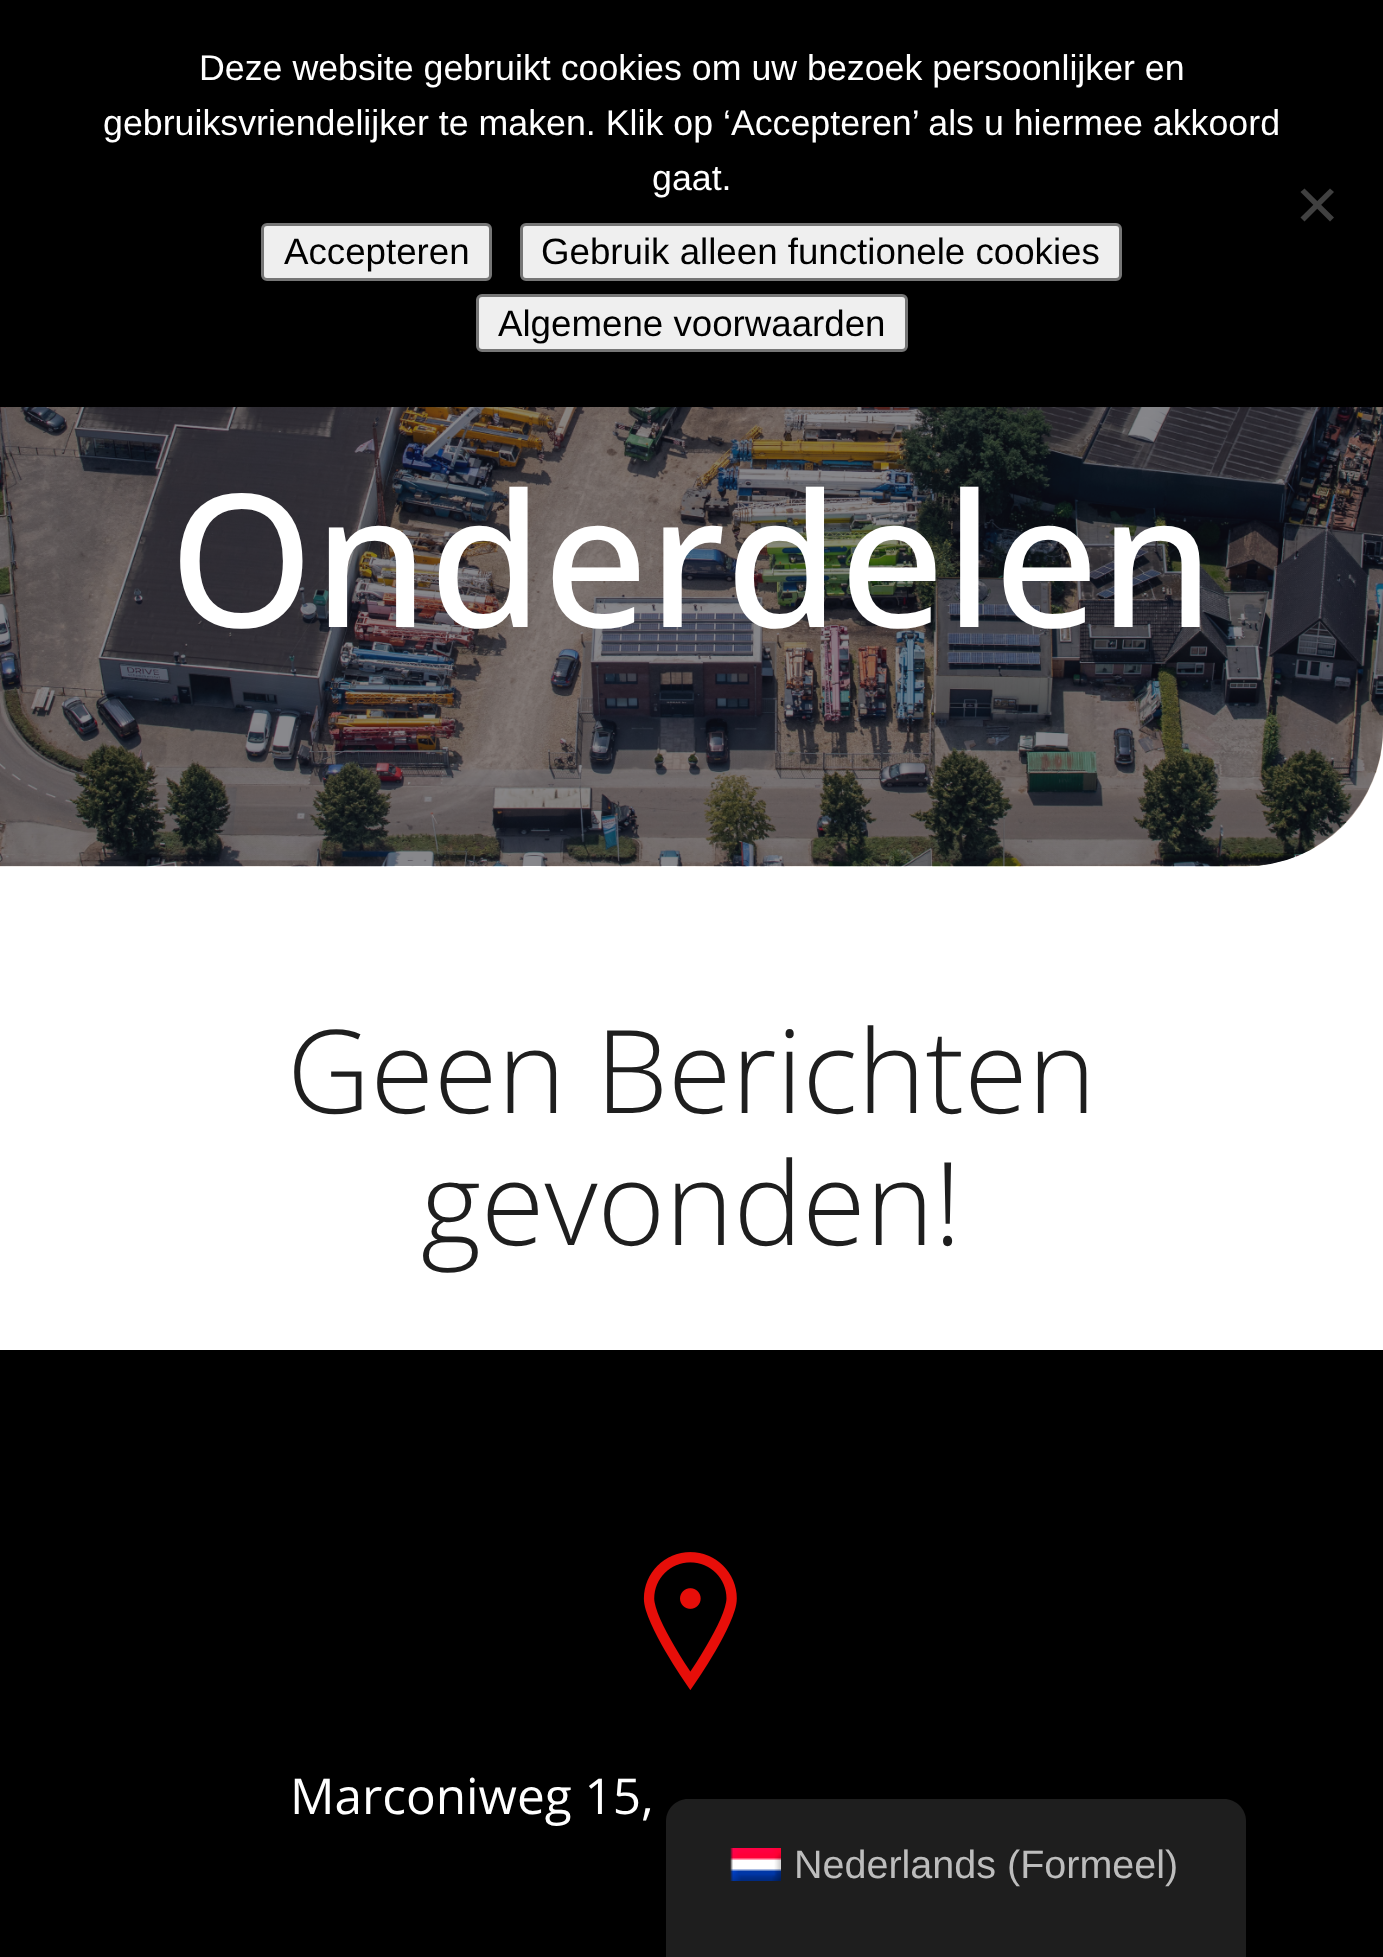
<svg xmlns="http://www.w3.org/2000/svg" width="1383" height="1957">
<rect width="100%" height="100%" fill="#fff"/>
<image x="0" y="407" width="1383" height="460" href="media/1.png"/>
<path d="M0 0h1383v728c0 76-62 138-138 138h-1245z" fill="#11121a80"/>
<rect width="1383" height="407" fill="#000"/>
<text x="199" y="80" style="font-family:Liberation Sans;font-size:35.75px;fill:#fff">Deze website gebruikt cookies om uw bezoek persoonlijker en</text>
<text x="103" y="135" style="font-family:Liberation Sans;font-size:35.75px;fill:#fff">gebruiksvriendelijker te maken. Klik op ‘Accepteren’ als u hiermee akkoord</text>
<text x="652" y="190" style="font-family:Liberation Sans;font-size:35.75px;fill:#fff">gaat.</text>
<path d="M1330 188.5l4 3.5l-29.5 29.5l-4-4z" fill="#404040"/>
<path d="M1300.5 192l4-3.5l29.5 29l-4 4z" fill="#404040"/>
<rect x="262.5" y="224.5" width="228" height="55" rx="4.5" fill="#efefef" stroke="#767676" stroke-width="3"/>
<text x="284" y="264" style="font-family:Liberation Sans;font-size:36.7px;fill:#000">Accepteren</text>
<rect x="521.5" y="224.5" width="599" height="55" rx="4.5" fill="#efefef" stroke="#767676" stroke-width="3"/>
<text x="541" y="264" style="font-family:Liberation Sans;font-size:36.7px;fill:#000">Gebruik alleen functionele cookies</text>
<rect x="477.5" y="295.5" width="429" height="55" rx="4.5" fill="#efefef" stroke="#767676" stroke-width="3"/>
<text x="498" y="336" style="font-family:Liberation Sans;font-size:36.7px;fill:#000">Algemene voorwaarden</text>
<text x="169" y="627" style="font-family:Open Sans;font-size:184.75px;font-weight:500;fill:#fff">Onderdelen</text>
<text x="287" y="1113" style="font-family:Open Sans;font-size:115.5px;font-weight:300;fill:#1e1e1e">Geen Berichten</text>
<text x="421" y="1245" style="font-family:Open Sans;font-size:115.5px;font-weight:300;fill:#1e1e1e">gevonden!</text>
<rect y="1350" width="1383" height="607" fill="#000"/>
<image x="643" y="1552" width="94" height="138" href="media/2.png"/>
<text x="290" y="1814" style="font-family:Open Sans;font-size:49.5px;fill:#fff">Marconiweg 15,</text>
<path d="M688 1799h536c12 0 22 10 22 22v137h-580v-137c0-12 10-22 22-22z" fill="#1e1e1e"/>
<image x="730" y="1848" width="51" height="33" href="media/3.png"/>
<text x="794" y="1878" style="font-family:Liberation Sans;font-size:39.5px;fill:#bdbdbd">Nederlands (Formeel)</text>
</svg>
